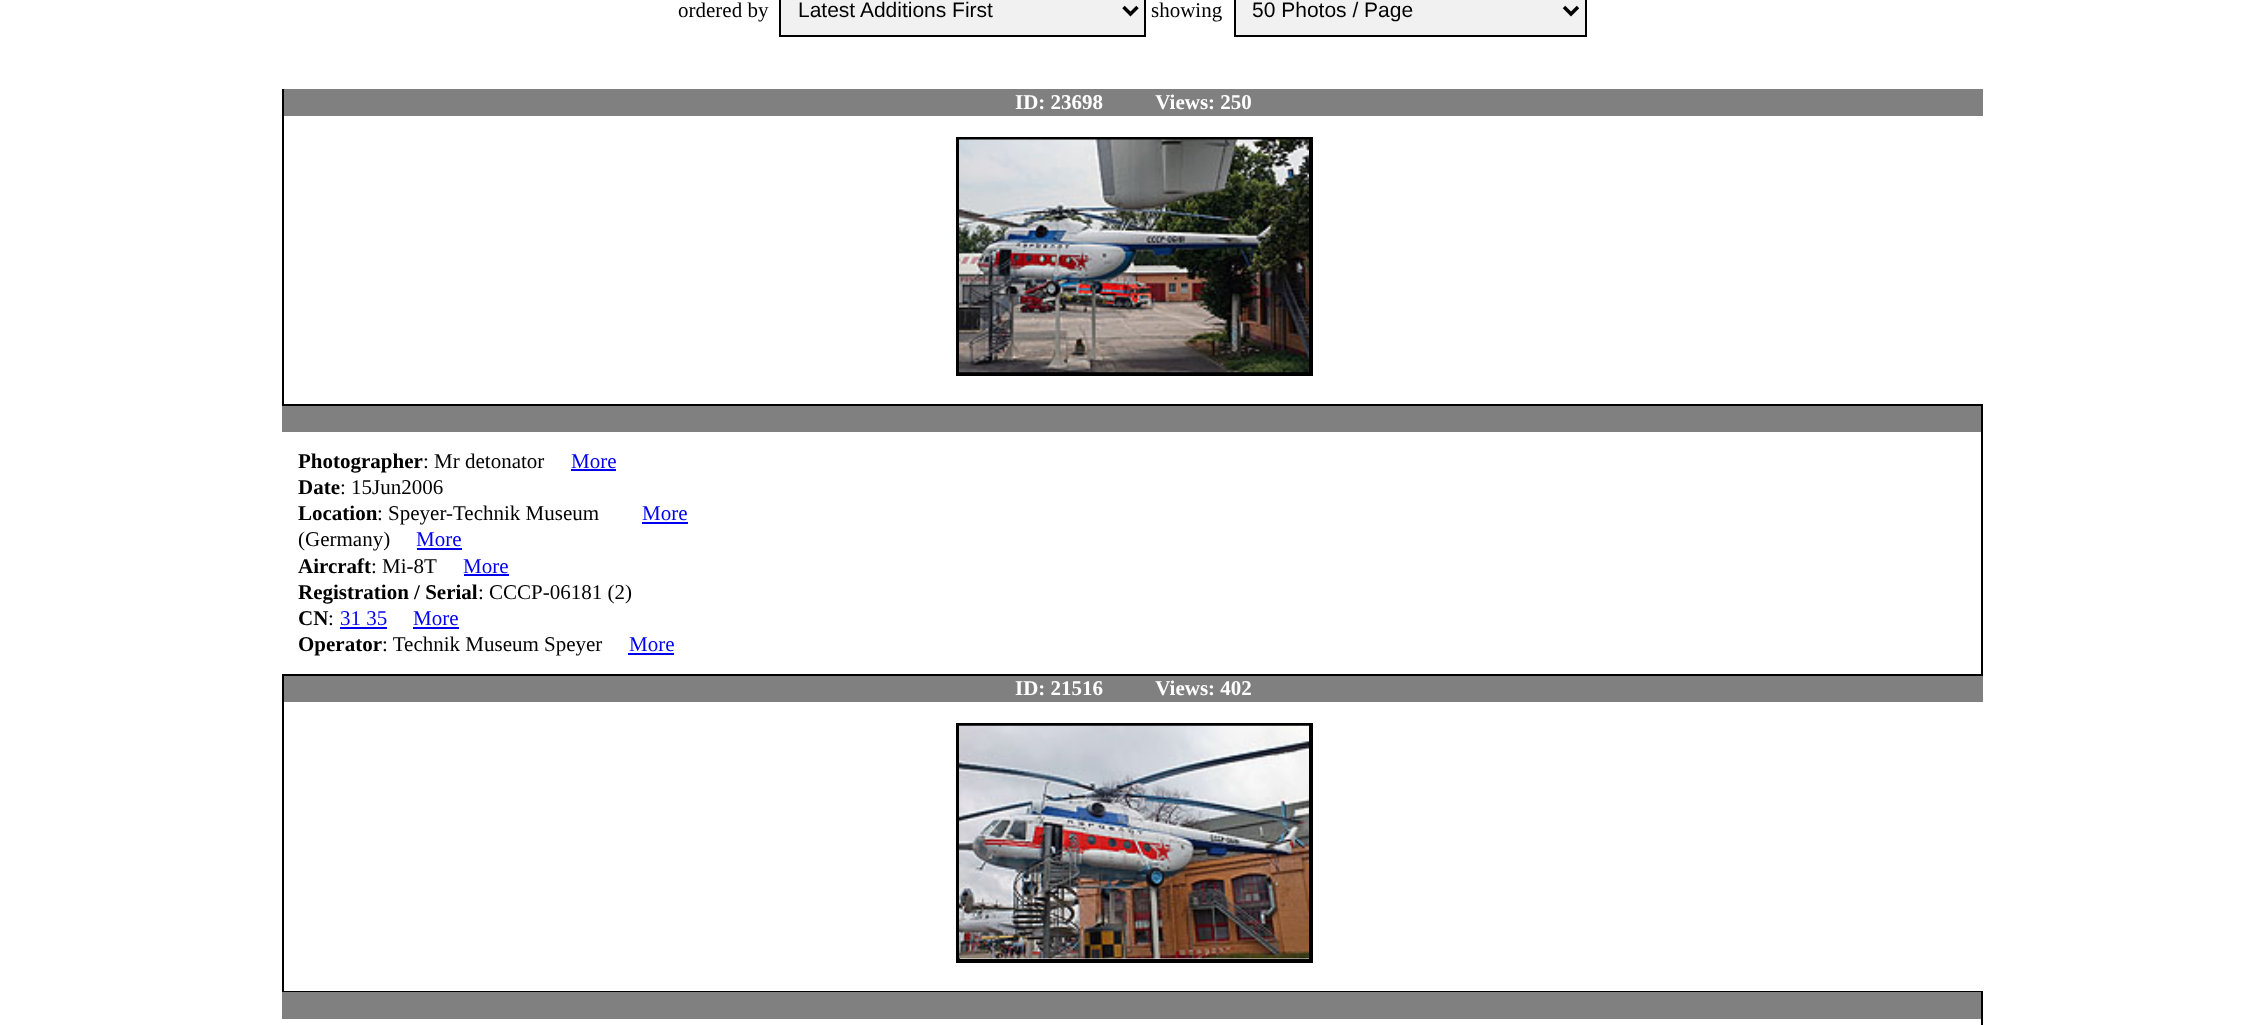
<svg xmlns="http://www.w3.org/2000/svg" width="2263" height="1025">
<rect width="100%" height="100%" fill="#fff"/>
<text x="678" y="17" style="font-family:Liberation Serif;font-size:21px;fill:#000">ordered by</text>
<rect x="780" y="-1" width="365" height="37" fill="#f1f1f1" stroke="#000" stroke-width="2"/>
<path d="M1123.5 7l7 7l7-7" fill="none" stroke="#000" stroke-width="3.5"/>
<text x="798" y="17" style="font-family:Liberation Sans;font-size:21px;fill:#000">Latest Additions First</text>
<text x="1151" y="17" style="font-family:Liberation Serif;font-size:21px;fill:#000">showing</text>
<rect x="1235" y="-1" width="351" height="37" fill="#f1f1f1" stroke="#000" stroke-width="2"/>
<path d="M1564 7l7 7l7-7" fill="none" stroke="#000" stroke-width="3.5"/>
<text x="1252" y="17" style="font-family:Liberation Sans;font-size:21px;fill:#000">50 Photos / Page</text>
<rect x="282" y="404" width="1701" height="2" fill="#000"/>
<rect x="282" y="89" width="2" height="317" fill="#000"/>
<rect x="284" y="89" width="1699" height="27" fill="#808080"/>
<text x="1015" y="109" style="font-family:Liberation Serif;font-size:21px;font-weight:bold;fill:#fff" xml:space="preserve">ID: 23698          Views: 250</text>
<rect x="958" y="139" width="353" height="235" fill="none" stroke="#000" stroke-width="4"/>
<image x="959" y="139" width="350" height="234" href="media/1.png"/>
<rect x="1981" y="406" width="2" height="270" fill="#000"/>
<rect x="282" y="674" width="1701" height="2" fill="#000"/>
<rect x="282" y="406" width="1699" height="26" fill="#808080"/>
<text x="298" y="468" style="font-family:Liberation Serif;font-size:21px;font-weight:bold;fill:#000">Photographer</text>
<text x="423" y="468" style="font-family:Liberation Serif;font-size:21px;fill:#000">: Mr detonator</text>
<text x="571" y="468" style="font-family:Liberation Serif;font-size:21px;fill:#00e">More</text>
<rect x="571" y="469" width="45" height="2" fill="#00e"/>
<text x="298" y="494" style="font-family:Liberation Serif;font-size:21px;font-weight:bold;fill:#000">Date</text>
<text x="340" y="494" style="font-family:Liberation Serif;font-size:21px;fill:#000">: 15Jun2006</text>
<text x="298" y="520" style="font-family:Liberation Serif;font-size:21px;font-weight:bold;fill:#000">Location</text>
<text x="377" y="520" style="font-family:Liberation Serif;font-size:21px;fill:#000">: Speyer-Technik Museum</text>
<text x="642" y="520" style="font-family:Liberation Serif;font-size:21px;fill:#00e">More</text>
<rect x="642" y="522" width="46" height="2" fill="#00e"/>
<text x="298" y="546" style="font-family:Liberation Serif;font-size:21px;fill:#000">(Germany)</text>
<text x="416" y="546" style="font-family:Liberation Serif;font-size:21px;fill:#00e">More</text>
<rect x="417" y="548" width="45" height="2" fill="#00e"/>
<text x="298" y="573" style="font-family:Liberation Serif;font-size:21px;font-weight:bold;fill:#000">Aircraft</text>
<text x="371" y="573" style="font-family:Liberation Serif;font-size:21px;fill:#000">: Mi-8T</text>
<text x="463" y="573" style="font-family:Liberation Serif;font-size:21px;fill:#00e">More</text>
<rect x="464" y="574" width="45" height="2" fill="#00e"/>
<text x="298" y="599" style="font-family:Liberation Serif;font-size:21px;font-weight:bold;fill:#000">Registration / Serial</text>
<text x="478" y="599" style="font-family:Liberation Serif;font-size:21px;fill:#000">: CCCP-06181 (2)</text>
<text x="298" y="625" style="font-family:Liberation Serif;font-size:21px;font-weight:bold;fill:#000">CN</text>
<text x="328" y="625" style="font-family:Liberation Serif;font-size:21px;fill:#000">:</text>
<text x="340" y="625" style="font-family:Liberation Serif;font-size:21px;fill:#00e">31 35</text>
<rect x="340" y="627" width="47" height="2" fill="#00e"/>
<text x="413" y="625" style="font-family:Liberation Serif;font-size:21px;fill:#00e">More</text>
<rect x="413" y="627" width="46" height="2" fill="#00e"/>
<text x="298" y="651" style="font-family:Liberation Serif;font-size:21px;font-weight:bold;fill:#000">Operator</text>
<text x="382" y="651" style="font-family:Liberation Serif;font-size:21px;fill:#000">: Technik Museum Speyer</text>
<text x="629" y="651" style="font-family:Liberation Serif;font-size:21px;fill:#00e">More</text>
<rect x="628" y="653" width="46" height="2" fill="#00e"/>
<rect x="282" y="991" width="1701" height="1" fill="#000"/>
<rect x="282" y="676" width="2" height="316" fill="#000"/>
<rect x="284" y="676" width="1699" height="26" fill="#808080"/>
<text x="1015" y="695" style="font-family:Liberation Serif;font-size:21px;font-weight:bold;fill:#fff" xml:space="preserve">ID: 21516          Views: 402</text>
<rect x="958" y="725" width="353" height="236" fill="none" stroke="#000" stroke-width="4"/>
<image x="959" y="725" width="350" height="234" href="media/2.png"/>
<rect x="1981" y="992" width="2" height="33" fill="#000"/>
<rect x="282" y="992" width="1699" height="27" fill="#808080"/>
</svg>
